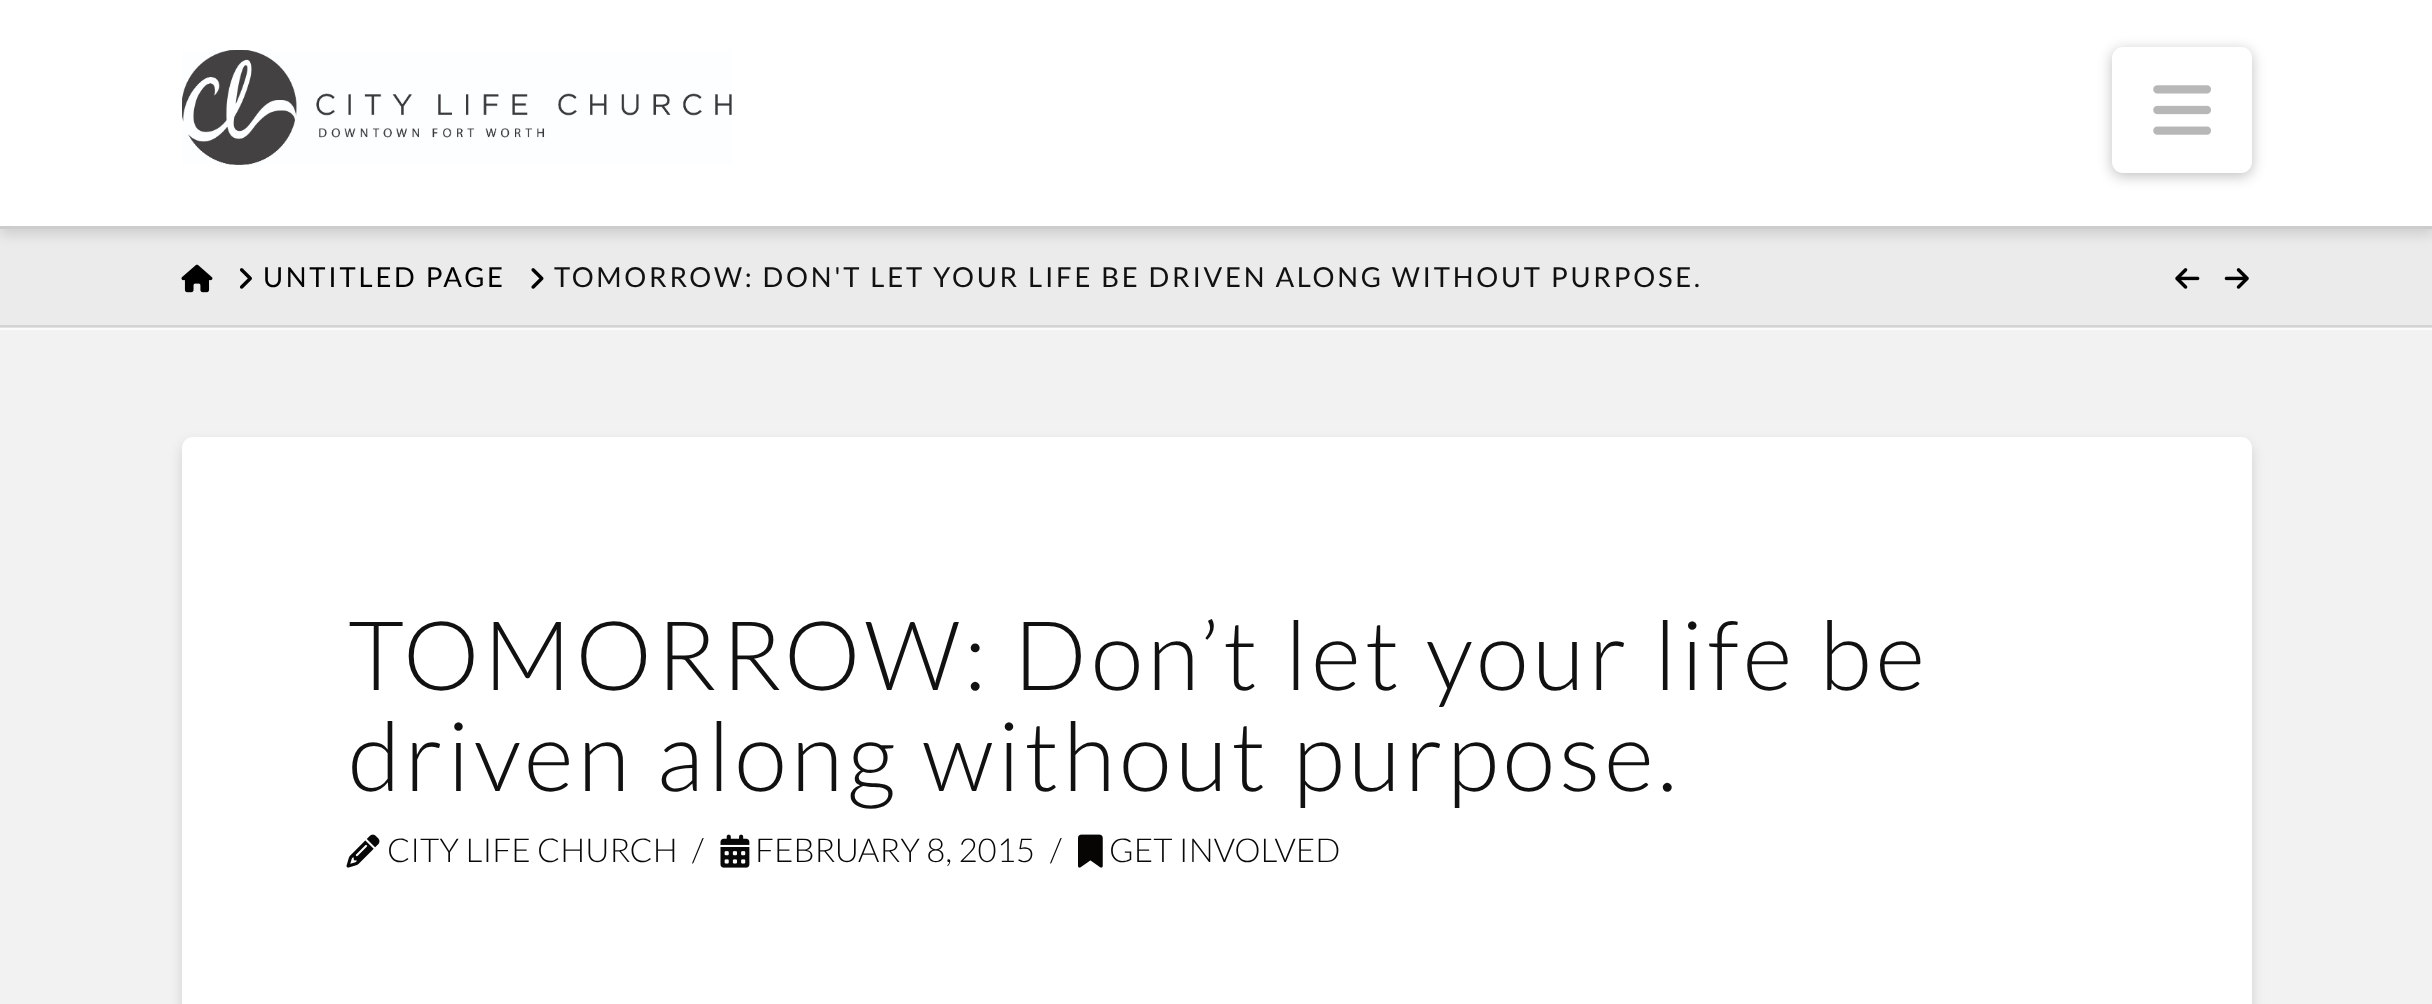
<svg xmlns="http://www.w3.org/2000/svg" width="2432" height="1004">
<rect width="100%" height="100%" fill="#f2f2f2"/>
<rect y="229" width="2432" height="98" fill="#ebebeb"/>
<rect y="6" width="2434" height="228" fill="#00000021" filter="blur(6.5px)"/>
<rect width="2432" height="226" fill="#fff"/>
<rect y="226" width="2432" height="3" fill="#ccc"/>
<image x="182" y="50" width="550" height="115" href="media/1.png"/>
<rect x="2112" y="50" width="140" height="126" rx="11" fill="#00000040" filter="blur(7px)"/>
<rect x="2112" y="47" width="140" height="126" rx="11" fill="#fff"/>
<image x="2153" y="85" width="58" height="50" href="media/2.png"/>
<path d="M0 327v3h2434v-99v96z" fill="#fbfbfb"/>
<rect y="325" width="2432" height="3" fill="#0000001a"/>
<image x="181" y="264" width="32" height="29" href="media/3.png"/>
<image x="240" y="268" width="12" height="21" href="media/4.png"/>
<text x="263" y="287" style="font-family:Lato;font-size:27.5px;letter-spacing:2.75px;fill:#000">UNTITLED PAGE</text>
<image x="531" y="268" width="13" height="21" href="media/5.png"/>
<text x="554" y="287" style="font-family:Lato;font-size:27.5px;letter-spacing:2.75px;fill:#111">TOMORROW: DON'T LET YOUR LIFE BE DRIVEN ALONG WITHOUT PURPOSE.</text>
<image x="2175" y="268" width="25" height="21" href="media/6.png"/>
<image x="2224" y="268" width="25" height="21" href="media/7.png"/>
<rect x="182" y="443" width="2070" height="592" rx="11" fill="#00000021" filter="blur(6.5px)"/>
<rect x="182" y="437" width="2070" height="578" rx="11" fill="#fff"/>
<text x="348" y="690" style="font-family:Lato;font-size:96.25px;font-weight:300;letter-spacing:4.15px;fill:#111">TOMORROW: Don’t let your life be</text>
<text x="348" y="791" style="font-family:Lato;font-size:96.25px;font-weight:300;letter-spacing:4.15px;fill:#111">driven along without purpose.</text>
<image x="346" y="834" width="34" height="34" href="media/8.png"/>
<text x="387" y="862" style="font-family:Lato;font-size:33px;font-weight:300;fill:#080808">CITY LIFE CHURCH</text>
<text x="692" y="862" style="font-family:Lato;font-size:33px;font-weight:300;fill:#080808">/</text>
<image x="720" y="834" width="30" height="34" href="media/9.png"/>
<text x="755" y="862" style="font-family:Lato;font-size:33px;font-weight:300;fill:#080808">FEBRUARY 8, 2015</text>
<text x="1050" y="862" style="font-family:Lato;font-size:33px;font-weight:300;fill:#080808">/</text>
<image x="1078" y="834" width="25" height="34" href="media/10.png"/>
<text x="1109" y="862" style="font-family:Lato;font-size:33px;font-weight:300;fill:#080808">GET INVOLVED</text>
</svg>
